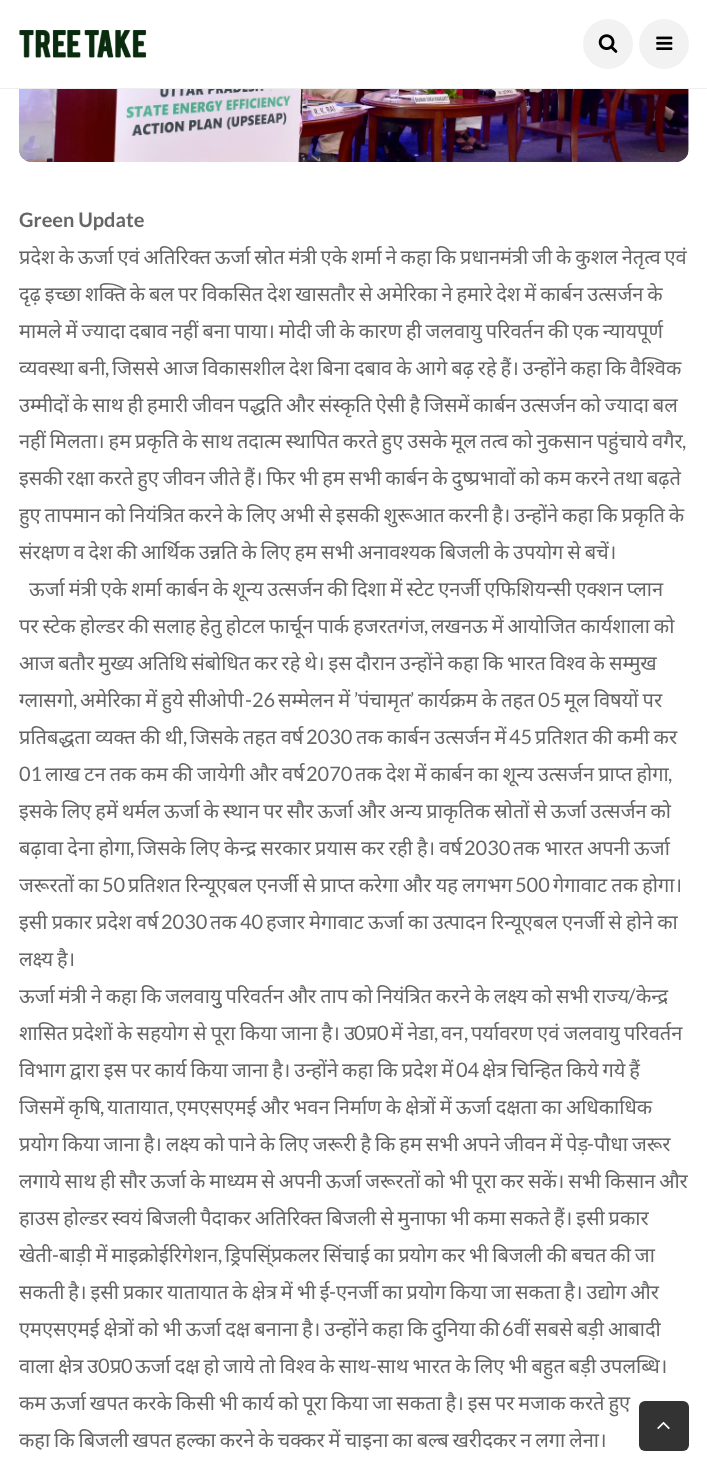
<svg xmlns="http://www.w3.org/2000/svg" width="707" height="1470">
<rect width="100%" height="100%" fill="#fff"/>
<rect y="88" width="707" height="1" fill="#eee"/>
<image x="19" y="30" width="128" height="28" href="media/1.png"/>
<circle cx="608" cy="44" r="25" fill="#f2f2f2"/>
<image x="598" y="34" width="20" height="19" href="media/2.png"/>
<circle cx="664" cy="44" r="25" fill="#f2f2f2"/>
<image x="656" y="36" width="17" height="14" href="media/3.png"/>
<image x="19" y="89" width="670" height="73" href="media/4.png"/>
<text x="19" y="227" style="font-family:Lato;font-size:20px;font-weight:bold;fill:#666">Green Update</text>
<text x="19" y="264" word-spacing="-1.3" style="font-family:Noto Sans;font-size:20px;fill:#666">प्रदेश के ऊर्जा एवं अतिरिक्त ऊर्जा स्रोत मंत्री एके शर्मा ने कहा कि प्रधानमंत्री जी के कुशल नेतृत्व एवं</text>
<text x="19" y="301" word-spacing="-1.3" style="font-family:Noto Sans;font-size:20px;fill:#666">दृढ़ इच्छा शक्ति के बल पर विकसित देश खासतौर से अमेरिका ने हमारे देश में कार्बन उत्सर्जन के</text>
<text x="19" y="338" word-spacing="-1.3" style="font-family:Noto Sans;font-size:20px;fill:#666">मामले में ज्यादा दबाव नहीं बना पाया। मोदी जी के कारण ही जलवायु परिवर्तन की एक न्यायपूर्ण</text>
<text x="19" y="375" word-spacing="-1.25" style="font-family:Noto Sans;font-size:20px;fill:#666">व्यवस्था बनी</text>
<text x="105" y="375" style="font-family:Lato;font-size:20px;fill:#666">,</text>
<text x="112" y="375" word-spacing="-1.25" style="font-family:Noto Sans;font-size:20px;fill:#666">जिससे आज विकासशील देश बिना दबाव के आगे बढ़ रहे हैं। उन्होंने कहा कि वैश्विक</text>
<text x="19" y="412" word-spacing="-1.3" style="font-family:Noto Sans;font-size:20px;fill:#666">उम्मीदों के साथ ही हमारी जीवन पद्धति और संस्कृति ऐसी है जिसमें कार्बन उत्सर्जन को ज्यादा बल</text>
<text x="19" y="448" word-spacing="-1.3" style="font-family:Noto Sans;font-size:20px;fill:#666">नहीं मिलता। हम प्रकृति के साथ तदात्म स्थापित करते हुए उसके मूल तत्व को नुकसान पहुंचाये वगैर</text>
<text x="682" y="448" style="font-family:Lato;font-size:20px;fill:#666">,</text>
<text x="19" y="485" word-spacing="-1.3" style="font-family:Noto Sans;font-size:20px;fill:#666">इसकी रक्षा करते हुए जीवन जीते हैं। फिर भी हम सभी कार्बन के दुष्प्रभावों को कम करने तथा बढ़ते</text>
<text x="19" y="522" word-spacing="-1.3" style="font-family:Noto Sans;font-size:20px;fill:#666">हुए तापमान को नियंत्रित करने के लिए अभी से इसकी शुरूआत करनी है। उन्होंने कहा कि प्रकृति के</text>
<text x="19" y="559" word-spacing="-1.3" style="font-family:Noto Sans;font-size:20px;fill:#666">संरक्षण व देश की आर्थिक उन्नति के लिए हम सभी अनावश्यक बिजली के उपयोग से बचें।</text>
<text x="29" y="596" word-spacing="-1.25" style="font-family:Noto Sans;font-size:20px;fill:#666">ऊर्जा मंत्री एके शर्मा कार्बन के शून्य उत्सर्जन की दिशा में स्टेट एनर्जी एफिशियन्सी एक्शन प्लान</text>
<text x="19" y="633" word-spacing="-1.25" style="font-family:Noto Sans;font-size:20px;fill:#666">पर स्टेक होल्डर की सलाह हेतु होटल फार्चून पार्क हजरतगंज</text>
<text x="424" y="633" style="font-family:Lato;font-size:20px;fill:#666">,</text>
<text x="431" y="633" word-spacing="-1.25" style="font-family:Noto Sans;font-size:20px;fill:#666">लखनऊ में आयोजित कार्यशाला को</text>
<text x="19" y="670" word-spacing="-1.3" style="font-family:Noto Sans;font-size:20px;fill:#666">आज बतौर मुख्य अतिथि संबोधित कर रहे थे। इस दौरान उन्होंने कहा कि भारत विश्व के सम्मुख</text>
<text x="19" y="707" style="font-family:Noto Sans;font-size:20px;fill:#666">ग्लासगो</text>
<text x="80" y="707" word-spacing="-1" style="font-family:Noto Sans;font-size:20px;fill:#666">अमेरिका में हुये सीओपी</text>
<text x="278" y="707" word-spacing="-1" style="font-family:Noto Sans;font-size:20px;fill:#666">सम्मेलन में</text>
<text x="354" y="707" style="font-family:Lato;font-size:20px;fill:#666">’</text>
<text x="358" y="707" style="font-family:Noto Sans;font-size:20px;fill:#666">पंचामृत</text>
<text x="418" y="707" word-spacing="-1" style="font-family:Noto Sans;font-size:20px;fill:#666">कार्यक्रम के तहत</text>
<text x="538" y="707" style="font-family:Lato;font-size:20px;fill:#666">05</text>
<text x="564" y="707" word-spacing="-1" style="font-family:Noto Sans;font-size:20px;fill:#666">मूल विषयों पर</text>
<text x="73" y="707" style="font-family:Lato;font-size:20px;fill:#666">,</text>
<text x="245" y="707" style="font-family:Lato;font-size:20px;fill:#666">-26</text>
<text x="410" y="707" style="font-family:Lato;font-size:20px;fill:#666">’</text>
<text x="19" y="744" word-spacing="-1" style="font-family:Noto Sans;font-size:20px;fill:#666">प्रतिबद्धता व्यक्त की थी</text>
<text x="183" y="744" style="font-family:Lato;font-size:20px;fill:#666">,</text>
<text x="190" y="744" word-spacing="-1" style="font-family:Noto Sans;font-size:20px;fill:#666">जिसके तहत वर्ष</text>
<text x="306" y="744" style="font-family:Lato;font-size:20px;fill:#666">2030</text>
<text x="356" y="744" word-spacing="-1" style="font-family:Noto Sans;font-size:20px;fill:#666">तक कार्बन उत्सर्जन में</text>
<text x="509" y="744" style="font-family:Lato;font-size:20px;fill:#666">45</text>
<text x="535" y="744" word-spacing="-1" style="font-family:Noto Sans;font-size:20px;fill:#666">प्रतिशत की कमी कर</text>
<text x="19" y="781" style="font-family:Lato;font-size:20px;fill:#666">01</text>
<text x="45" y="781" word-spacing="-1" style="font-family:Noto Sans;font-size:20px;fill:#666">लाख टन तक कम की जायेगी और वर्ष</text>
<text x="306" y="781" style="font-family:Lato;font-size:20px;fill:#666">2070</text>
<text x="355" y="781" word-spacing="-1" style="font-family:Noto Sans;font-size:20px;fill:#666">तक देश में कार्बन का शून्य उत्सर्जन प्राप्त होगा</text>
<text x="668" y="781" style="font-family:Lato;font-size:20px;fill:#666">,</text>
<text x="19" y="818" word-spacing="-1.3" style="font-family:Noto Sans;font-size:20px;fill:#666">इसके लिए हमें थर्मल ऊर्जा के स्थान पर सौर ऊर्जा और अन्य प्राकृतिक स्रोतों से ऊर्जा उत्सर्जन को</text>
<text x="19" y="855" word-spacing="-1" style="font-family:Noto Sans;font-size:20px;fill:#666">बढ़ावा देना होगा</text>
<text x="130" y="855" style="font-family:Lato;font-size:20px;fill:#666">,</text>
<text x="137" y="855" word-spacing="-1" style="font-family:Noto Sans;font-size:20px;fill:#666">जिसके लिए केन्द्र सरकार प्रयास कर रही है। वर्ष</text>
<text x="464" y="855" style="font-family:Lato;font-size:20px;fill:#666">2030</text>
<text x="513" y="855" word-spacing="-1" style="font-family:Noto Sans;font-size:20px;fill:#666">तक भारत अपनी ऊर्जा</text>
<text x="19" y="892" word-spacing="-1" style="font-family:Noto Sans;font-size:20px;fill:#666">जरूरतों का</text>
<text x="102" y="892" style="font-family:Lato;font-size:20px;fill:#666">50</text>
<text x="128" y="892" word-spacing="-1" style="font-family:Noto Sans;font-size:20px;fill:#666">प्रतिशत रिन्यूएबल एनर्जी से प्राप्त करेगा और यह लगभग</text>
<text x="515" y="892" style="font-family:Lato;font-size:20px;fill:#666">500</text>
<text x="553" y="892" word-spacing="-1" style="font-family:Noto Sans;font-size:20px;fill:#666">गेगावाट तक होगा।</text>
<text x="19" y="929" word-spacing="-1" style="font-family:Noto Sans;font-size:20px;fill:#666">इसी प्रकार प्रदेश वर्ष</text>
<text x="161" y="929" style="font-family:Lato;font-size:20px;fill:#666">2030</text>
<text x="210" y="929" style="font-family:Noto Sans;font-size:20px;fill:#666">तक</text>
<text x="240" y="929" style="font-family:Lato;font-size:20px;fill:#666">40</text>
<text x="266" y="929" word-spacing="-1" style="font-family:Noto Sans;font-size:20px;fill:#666">हजार मेगावाट ऊर्जा का उत्पादन रिन्यूएबल एनर्जी से होने का</text>
<text x="19" y="966" word-spacing="-1.3" style="font-family:Noto Sans;font-size:20px;fill:#666">लक्ष्य है।</text>
<text x="19" y="1003" word-spacing="-1.3" style="font-family:Noto Sans;font-size:20px;fill:#666">ऊर्जा मंत्री ने कहा कि जलवायुु परिवर्तन और ताप को नियंत्रित करने के लक्ष्य को सभी राज्य</text>
<text x="628" y="1003" style="font-family:Lato;font-size:20px;fill:#666">/</text>
<text x="636" y="1003" style="font-family:Noto Sans;font-size:20px;fill:#666">केन्द्र</text>
<text x="19" y="1040" word-spacing="-1" style="font-family:Noto Sans;font-size:20px;fill:#666">शासित प्रदेशों के सहयोग से पूरा किया जाना है। उ</text>
<text x="354" y="1040" style="font-family:Lato;font-size:20px;fill:#666">0</text>
<text x="366" y="1040" style="font-family:Noto Sans;font-size:20px;fill:#666">प्र</text>
<text x="377" y="1040" style="font-family:Lato;font-size:20px;fill:#666">0</text>
<text x="391" y="1040" word-spacing="-1" style="font-family:Noto Sans;font-size:20px;fill:#666">में नेडा</text>
<text x="434" y="1040" style="font-family:Lato;font-size:20px;fill:#666">,</text>
<text x="441" y="1040" style="font-family:Noto Sans;font-size:20px;fill:#666">वन</text>
<text x="464" y="1040" style="font-family:Lato;font-size:20px;fill:#666">,</text>
<text x="471" y="1040" word-spacing="-1" style="font-family:Noto Sans;font-size:20px;fill:#666">पर्यावरण एवं जलवायु परिवर्तन</text>
<text x="19" y="1077" word-spacing="-1.25" style="font-family:Noto Sans;font-size:20px;fill:#666">विभाग द्वारा इस पर कार्य किया जाना है। उन्होंने कहा कि प्रदेश में</text>
<text x="456" y="1077" style="font-family:Lato;font-size:20px;fill:#666">04</text>
<text x="482" y="1077" word-spacing="-1.25" style="font-family:Noto Sans;font-size:20px;fill:#666">क्षेत्र चिन्हित किये गये हैं</text>
<text x="19" y="1114" word-spacing="-1.1" style="font-family:Noto Sans;font-size:20px;fill:#666">जिसमें कृषि</text>
<text x="100" y="1114" style="font-family:Lato;font-size:20px;fill:#666">,</text>
<text x="107" y="1114" style="font-family:Noto Sans;font-size:20px;fill:#666">यातायात</text>
<text x="169" y="1114" style="font-family:Lato;font-size:20px;fill:#666">,</text>
<text x="176" y="1114" word-spacing="-1.1" style="font-family:Noto Sans;font-size:20px;fill:#666">एमएसएमई और भवन निर्माण के क्षेत्रों में ऊर्जा दक्षता का अधिकाधिक</text>
<text x="19" y="1151" word-spacing="-1.3" style="font-family:Noto Sans;font-size:20px;fill:#666">प्रयोग किया जाना है। लक्ष्य को पाने के लिए जरूरी है कि हम सभी अपने जीवन में पेड़</text>
<text x="587" y="1151" style="font-family:Lato;font-size:20px;fill:#666">-</text>
<text x="594" y="1151" word-spacing="-1.3" style="font-family:Noto Sans;font-size:20px;fill:#666">पौधा जरूर</text>
<text x="19" y="1188" word-spacing="-1.3" style="font-family:Noto Sans;font-size:20px;fill:#666">लगाये साथ ही सौर ऊर्जा के माध्यम से अपनी ऊर्जा जरूरतों को भी पूरा कर सकें। सभी किसान और</text>
<text x="19" y="1225" word-spacing="-1.3" style="font-family:Noto Sans;font-size:20px;fill:#666">हाउस होल्डर स्वयं बिजली पैदाकर अतिरिक्त बिजली से मुनाफा भी कमा सकते हैं। इसी प्रकार</text>
<text x="19" y="1262" style="font-family:Noto Sans;font-size:20px;fill:#666">खेती</text>
<text x="52" y="1262" style="font-family:Lato;font-size:20px;fill:#666">-</text>
<text x="59" y="1262" word-spacing="-1.25" style="font-family:Noto Sans;font-size:20px;fill:#666">बाड़ी में माइक्रोईरिगेशन</text>
<text x="218" y="1262" style="font-family:Lato;font-size:20px;fill:#666">,</text>
<text x="225" y="1262" word-spacing="-1.25" style="font-family:Noto Sans;font-size:20px;fill:#666">ड्रिपसिं्प्रकलर सिंचाई का प्रयोग कर भी बिजली की बचत की जा</text>
<text x="19" y="1299" word-spacing="-1.3" style="font-family:Noto Sans;font-size:20px;fill:#666">सकती है। इसी प्रकार यातायात के क्षेत्र में भी ई</text>
<text x="329" y="1299" style="font-family:Lato;font-size:20px;fill:#666">-</text>
<text x="336" y="1299" word-spacing="-1.3" style="font-family:Noto Sans;font-size:20px;fill:#666">एनर्जी का प्रयोग किया जा सकता है। उद्योग और</text>
<text x="19" y="1336" word-spacing="-1.25" style="font-family:Noto Sans;font-size:20px;fill:#666">एमएसएमई क्षेत्रों को भी ऊर्जा दक्ष बनाना है। उन्होंने कहा कि दुनिया की</text>
<text x="502" y="1336" style="font-family:Lato;font-size:20px;fill:#666">6</text>
<text x="514" y="1336" word-spacing="-1.25" style="font-family:Noto Sans;font-size:20px;fill:#666">वीं सबसे बड़ी आबादी</text>
<text x="19" y="1373" word-spacing="-1.25" style="font-family:Noto Sans;font-size:20px;fill:#666">वाला क्षेत्र उ</text>
<text x="98" y="1373" style="font-family:Lato;font-size:20px;fill:#666">0</text>
<text x="110" y="1373" style="font-family:Noto Sans;font-size:20px;fill:#666">प्र</text>
<text x="121" y="1373" style="font-family:Lato;font-size:20px;fill:#666">0</text>
<text x="135" y="1373" word-spacing="-1.25" style="font-family:Noto Sans;font-size:20px;fill:#666">ऊर्जा दक्ष हो जाये तो विश्व के साथ</text>
<text x="370" y="1373" style="font-family:Lato;font-size:20px;fill:#666">-</text>
<text x="377" y="1373" word-spacing="-1.25" style="font-family:Noto Sans;font-size:20px;fill:#666">साथ भारत के लिए भी बहुत बड़ी उपलब्धि।</text>
<text x="19" y="1410" word-spacing="-1.3" style="font-family:Noto Sans;font-size:20px;fill:#666">कम ऊर्जा खपत करके किसी भी कार्य को पूरा किया जा सकता है। इस पर मजाक करते हुए</text>
<text x="19" y="1447" word-spacing="-1.3" style="font-family:Noto Sans;font-size:20px;fill:#666">कहा कि बिजली खपत हल्का करने के चक्कर में चाइना का बल्ब खरीदकर न लगा लेना।</text>
<rect x="639" y="1401" width="50" height="50" rx="6" fill="#000000cc"/>
<image x="657" y="1421" width="13" height="9" href="media/5.png"/>
</svg>
